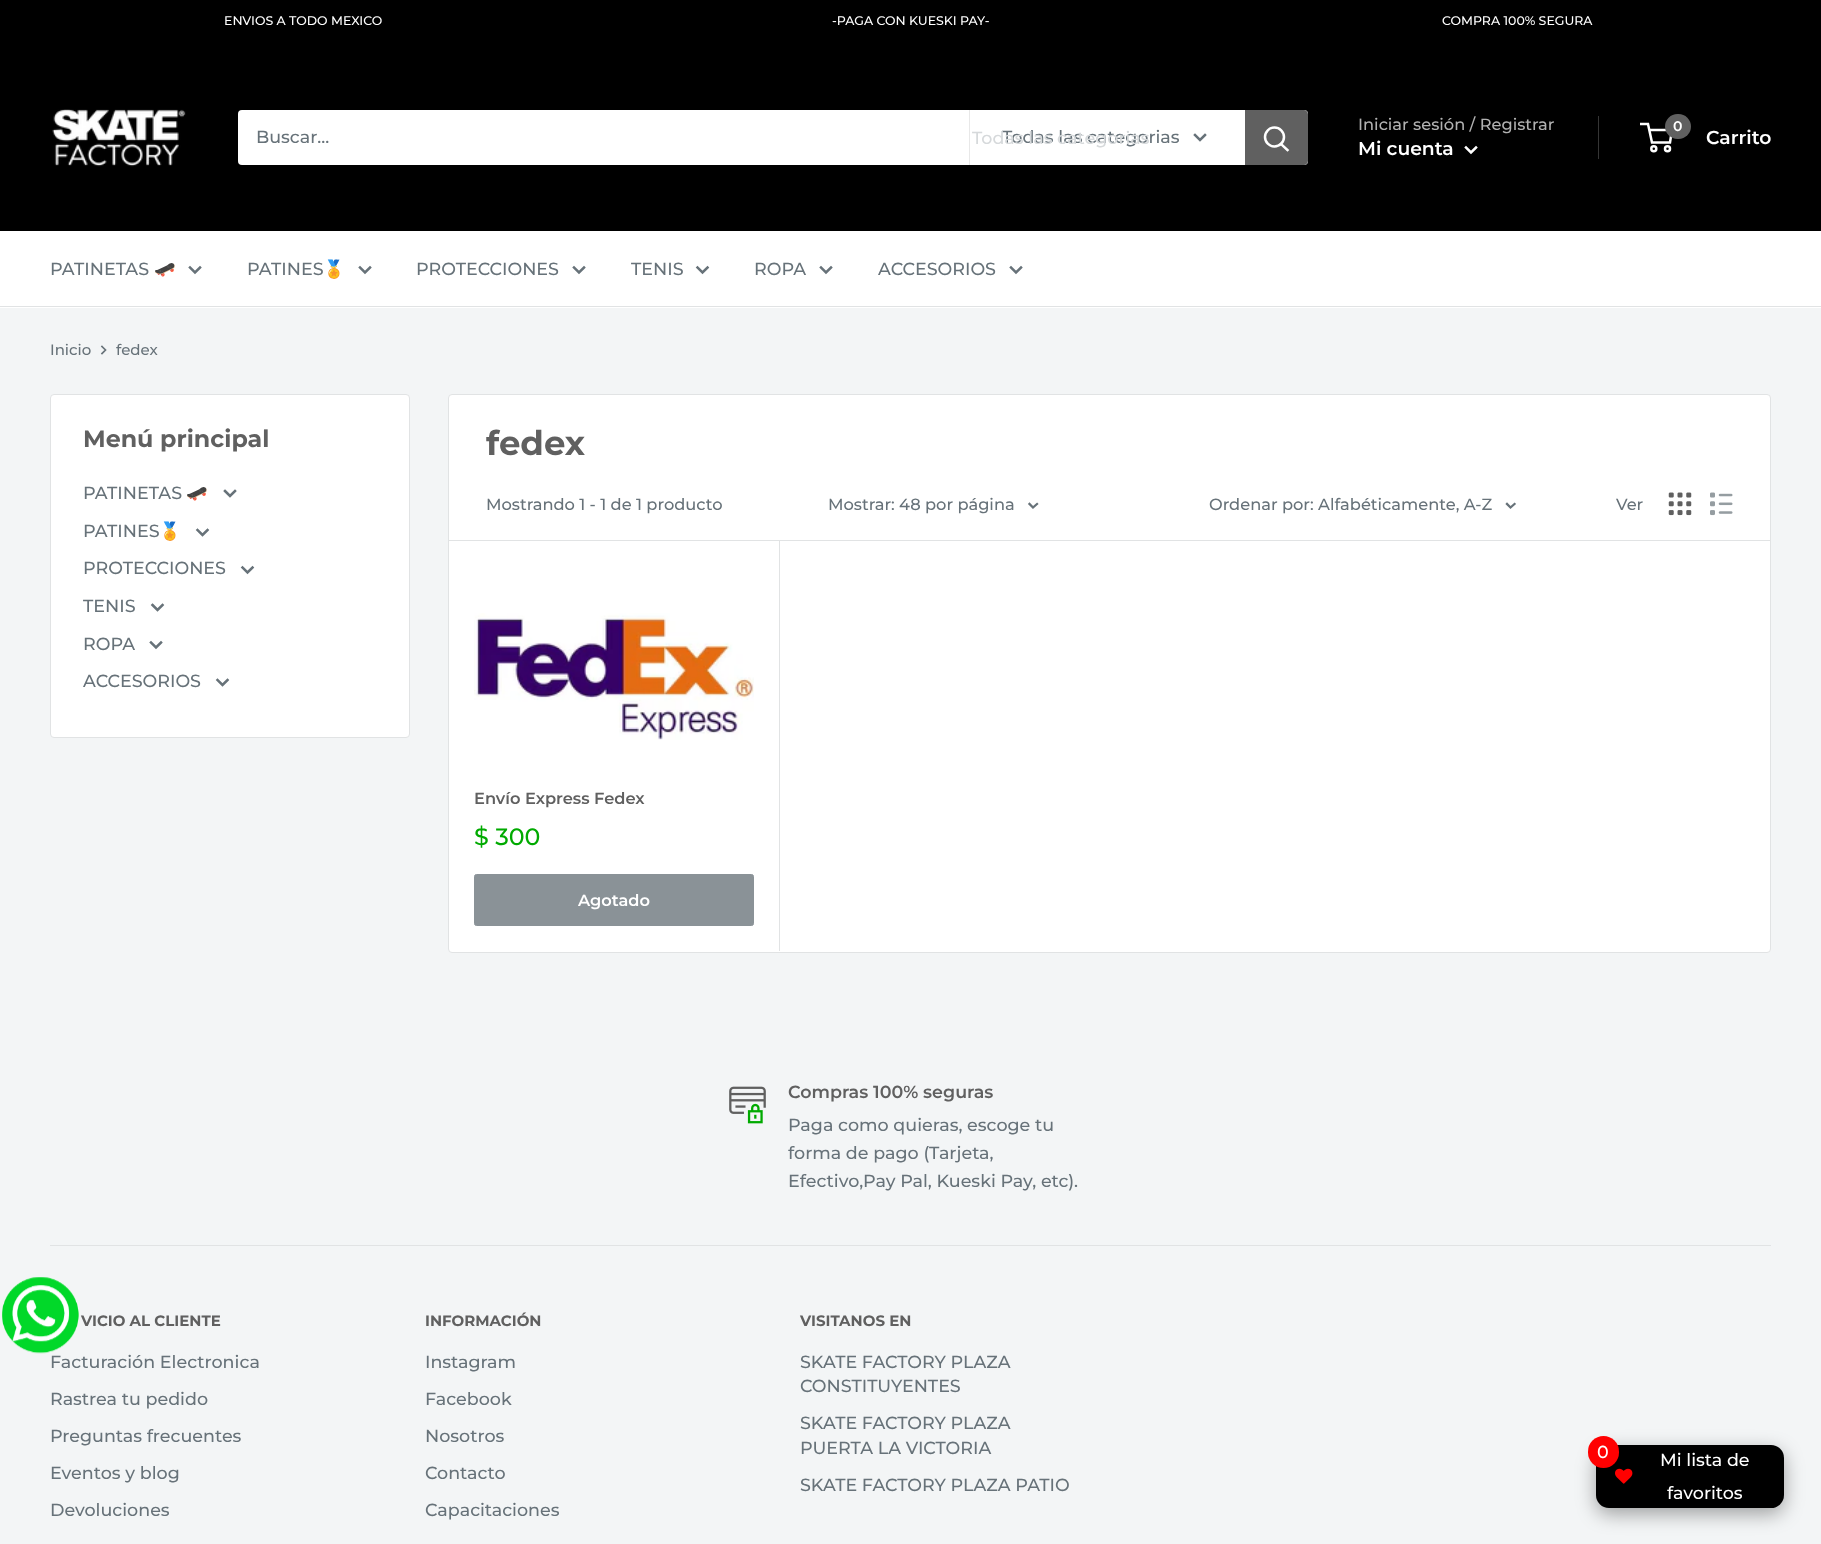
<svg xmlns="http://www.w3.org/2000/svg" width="1821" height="1544">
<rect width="100%" height="100%" fill="#f3f5f6"/>
<rect width="1821" height="231" fill="#000"/>
<text x="224" y="25" style="font-family:Montserrat;font-size:12.5px;font-weight:500;fill:#fff">ENVIOS A TODO MEXICO</text>
<text x="832" y="25" style="font-family:Montserrat;font-size:12.5px;font-weight:500;fill:#fff">-PAGA CON KUESKI PAY-</text>
<text x="1442" y="25" style="font-family:Montserrat;font-size:12.5px;font-weight:500;fill:#fff">COMPRA 100% SEGURA</text>
<image x="52" y="109" width="134" height="58" href="media/1.png"/>
<rect x="238" y="110" width="1070" height="55" rx="4" fill="#fff"/>
<text x="256" y="143" style="font-family:Montserrat;font-size:17.5px;font-weight:500;fill:#677279">Buscar...</text>
<rect x="969" y="110" width="1" height="55" fill="#e8e8e8"/>
<text x="1002" y="143" style="font-family:Montserrat;font-size:17.5px;font-weight:500;fill:#677279">Todas las categorias</text>
<path d="M1205 135l-5 5l-5-5" fill="none" stroke="#677279" stroke-width="2.5" stroke-linecap="square"/>
<text x="972" y="144" style="font-family:Montserrat;font-size:17.5px;font-weight:500;fill:#d6d9db">Todas las categorias</text>
<path d="M1245 110h59c2 0 4 2 4 4v47c0 2-2 4-4 4h-59z" fill="#606060"/>
<path d="M1287.5 150l-6.5-6" fill="none" stroke="#fff" stroke-width="2.5" stroke-linecap="square"/>
<circle cx="1274.5" cy="137" r="9.5" fill="none" stroke="#fff" stroke-width="2.5"/>
<text x="1358" y="130" style="font-family:Montserrat;font-size:16.25px;font-weight:500;fill:#b1b1b1">Iniciar sesión / Registrar</text>
<rect x="1598" y="116" width="1" height="43" fill="#353535"/>
<text x="1358" y="155" style="font-family:Montserrat;font-size:18.75px;font-weight:600;fill:#fff">Mi cuenta</text>
<path d="M1476 147.5l-5 5l-5-5" fill="none" stroke="#fff" stroke-width="2.5" stroke-linecap="square"/>
<circle cx="1653.8" cy="148.8" r="2.5" fill="none" stroke="#fff" stroke-width="2.5"/>
<circle cx="1667.5" cy="148.8" r="2.5" fill="none" stroke="#fff" stroke-width="2.5"/>
<path d="M1649 130h23l-2 12.5h-18l-4-18.5h-8" fill="none" stroke="#fff" stroke-width="2.5"/>
<rect x="1665" y="114" width="26" height="25" rx="12.5" fill="#606060"/>
<text x="1673" y="131" style="font-family:Montserrat;font-size:14px;font-weight:600;fill:#fff">0</text>
<text x="1706" y="144" style="font-family:Montserrat;font-size:18.75px;font-weight:600;fill:#fff">Carrito</text>
<rect y="231" width="1821" height="77" fill="#fff"/>
<rect y="306" width="1821" height="1" fill="#e1e3e4"/>
<text x="50" y="275" style="font-family:Montserrat;font-size:17.5px;font-weight:500;fill:#677279">PATINETAS</text>
<text x="154" y="275" style="font-family:Noto Color Emoji;font-size:17.5px;fill:#677279">🛹</text>
<path d="M200 267.5l-5 5l-5-5" fill="none" stroke="#677279" stroke-width="2.5" stroke-linecap="square"/>
<text x="247" y="275" style="font-family:Montserrat;font-size:17.5px;font-weight:500;fill:#677279">PATINES</text>
<text x="323" y="275" style="font-family:Noto Color Emoji;font-size:17.5px;fill:#677279">🏅</text>
<path d="M370 267.5l-5 5l-5-5" fill="none" stroke="#677279" stroke-width="2.5" stroke-linecap="square"/>
<text x="416" y="275" style="font-family:Montserrat;font-size:17.5px;font-weight:500;fill:#677279">PROTECCIONES</text>
<path d="M584 267.5l-5 5l-5-5" fill="none" stroke="#677279" stroke-width="2.5" stroke-linecap="square"/>
<text x="631" y="275" style="font-family:Montserrat;font-size:17.5px;font-weight:500;fill:#677279">TENIS</text>
<path d="M707.5 267.5l-5 5l-5-5" fill="none" stroke="#677279" stroke-width="2.5" stroke-linecap="square"/>
<text x="754" y="275" style="font-family:Montserrat;font-size:17.5px;font-weight:500;fill:#677279">ROPA</text>
<path d="M831 267.5l-5 5l-5-5" fill="none" stroke="#677279" stroke-width="2.5" stroke-linecap="square"/>
<text x="878" y="275" style="font-family:Montserrat;font-size:17.5px;font-weight:500;fill:#677279">ACCESORIOS</text>
<path d="M1021 267.5l-5 5l-5-5" fill="none" stroke="#677279" stroke-width="2.5" stroke-linecap="square"/>
<text x="50" y="355" style="font-family:Montserrat;font-size:15px;font-weight:500;fill:#677279">Inicio</text>
<path d="M102 346.5l3.5 3.5l-3.5 3.5" fill="none" stroke="#677279" stroke-width="1.7" stroke-linecap="square"/>
<text x="116" y="355" style="font-family:Montserrat;font-size:15px;font-weight:500;fill:#677279">fedex</text>
<rect x="50.5" y="394.5" width="359" height="343" rx="3.5" fill="#fff" stroke="#e1e3e4"/>
<text x="83" y="447" style="font-family:Montserrat;font-size:23.75px;font-weight:bold;fill:#606060">Menú principal</text>
<text x="83" y="499" style="font-family:Montserrat;font-size:17.5px;font-weight:500;fill:#677279">PATINETAS</text>
<text x="186" y="499" style="font-family:Noto Color Emoji;font-size:17.5px;fill:#677279">🛹</text>
<path d="M235 491l-5 5l-5-5m-17.5 39l-5 5l-5-5" fill="none" stroke="#677279" stroke-width="2.5" stroke-linecap="square"/>
<text x="83" y="537" style="font-family:Montserrat;font-size:17.5px;font-weight:500;fill:#677279">PATINES</text>
<text x="159" y="537" style="font-family:Noto Color Emoji;font-size:17.5px;fill:#677279">🏅</text>
<text x="83" y="574" style="font-family:Montserrat;font-size:17.5px;font-weight:500;fill:#677279">PROTECCIONES</text>
<path d="M252.5 567.5l-5 5l-5-5" fill="none" stroke="#677279" stroke-width="2.5" stroke-linecap="square"/>
<text x="83" y="612" style="font-family:Montserrat;font-size:17.5px;font-weight:500;fill:#677279">TENIS</text>
<path d="M162.5 605l-5 5l-5-5m8.5 37.5l-5 5l-5-5" fill="none" stroke="#677279" stroke-width="2.5" stroke-linecap="square"/>
<text x="83" y="650" style="font-family:Montserrat;font-size:17.5px;font-weight:500;fill:#677279">ROPA</text>
<text x="83" y="687" style="font-family:Montserrat;font-size:17.5px;font-weight:500;fill:#677279">ACCESORIOS</text>
<path d="M227.5 680l-5 5l-5-5" fill="none" stroke="#677279" stroke-width="2.5" stroke-linecap="square"/>
<rect x="448.5" y="394.5" width="1322" height="558" rx="3.5" fill="#fff" stroke="#e1e3e4"/>
<text x="486" y="455" style="font-family:Montserrat;font-size:34px;font-weight:bold;fill:#606060">fedex</text>
<rect x="779" y="540" width="1" height="411" fill="#e1e3e4"/>
<rect x="449" y="540" width="1321" height="1" fill="#e1e3e4"/>
<text x="486" y="510" style="font-family:Montserrat;font-size:16.25px;font-weight:500;fill:#677279">Mostrando 1 - 1 de 1 producto</text>
<text x="828" y="510" style="font-family:Montserrat;font-size:16.25px;font-weight:500;fill:#677279">Mostrar: 48 por página</text>
<path d="M1037 504l-4 3.5l-3.5-3.5" fill="none" stroke="#677279" stroke-width="2.3" stroke-linecap="square"/>
<text x="1209" y="510" style="font-family:Montserrat;font-size:16.25px;font-weight:500;fill:#677279">Ordenar por: Alfabéticamente, A-Z</text>
<path d="M1514.5 504l-4 3.5l-3.5-3.5" fill="none" stroke="#677279" stroke-width="2.3" stroke-linecap="square"/>
<text x="1616" y="510" style="font-family:Montserrat;font-size:16.25px;font-weight:500;fill:#677279">Ver</text>
<image x="1668" y="492" width="24" height="24" href="media/2.png"/>
<image x="1710" y="492" width="23" height="24" href="media/3.png"/>
<image x="474" y="613" width="280" height="127" href="media/4.png"/>
<text x="474" y="804" style="font-family:Montserrat;font-size:16.25px;font-weight:600;fill:#606060">Envío Express Fedex</text>
<text x="474" y="845" style="font-family:Montserrat;font-size:23.75px;font-weight:500;fill:#0a0">$ 300</text>
<rect x="474.5" y="874.5" width="279" height="51" rx="2" fill="#8a9297" stroke="#8a9297"/>
<text x="578" y="906" style="font-family:Montserrat;font-size:16.25px;font-weight:600;fill:#fff">Agotado</text>
<image x="729" y="1086" width="37" height="38" href="media/5.png"/>
<text x="788" y="1098" style="font-family:Montserrat;font-size:17.5px;font-weight:600;fill:#606060">Compras 100% seguras</text>
<text x="788" y="1131" style="font-family:Montserrat;font-size:17.5px;font-weight:500;fill:#677279">Paga como quieras, escoge tu</text>
<text x="788" y="1159" style="font-family:Montserrat;font-size:17.5px;font-weight:500;fill:#677279">forma de pago (Tarjeta,</text>
<text x="788" y="1187" style="font-family:Montserrat;font-size:17.5px;font-weight:500;fill:#677279">Efectivo,Pay Pal, Kueski Pay, etc).</text>
<image x="2" y="1277" width="77" height="77" href="media/6.png"/>
<rect x="50" y="1245" width="1721" height="1" fill="#e1e3e4"/>
<text x="81" y="1326" style="font-family:Montserrat;font-size:15px;font-weight:bold;fill:#606060">VICIO AL CLIENTE</text>
<text x="50" y="1368" style="font-family:Montserrat;font-size:17.5px;font-weight:500;fill:#677279">Facturación Electronica</text>
<text x="50" y="1405" style="font-family:Montserrat;font-size:17.5px;font-weight:500;fill:#677279">Rastrea tu pedido</text>
<text x="50" y="1442" style="font-family:Montserrat;font-size:17.5px;font-weight:500;fill:#677279">Preguntas frecuentes</text>
<text x="50" y="1479" style="font-family:Montserrat;font-size:17.5px;font-weight:500;fill:#677279">Eventos y blog</text>
<text x="50" y="1516" style="font-family:Montserrat;font-size:17.5px;font-weight:500;fill:#677279">Devoluciones</text>
<text x="425" y="1326" style="font-family:Montserrat;font-size:15px;font-weight:bold;fill:#606060">INFORMACIÓN</text>
<text x="425" y="1368" style="font-family:Montserrat;font-size:17.5px;font-weight:500;fill:#677279">Instagram</text>
<text x="425" y="1405" style="font-family:Montserrat;font-size:17.5px;font-weight:500;fill:#677279">Facebook</text>
<text x="425" y="1442" style="font-family:Montserrat;font-size:17.5px;font-weight:500;fill:#677279">Nosotros</text>
<text x="425" y="1479" style="font-family:Montserrat;font-size:17.5px;font-weight:500;fill:#677279">Contacto</text>
<text x="425" y="1516" style="font-family:Montserrat;font-size:17.5px;font-weight:500;fill:#677279">Capacitaciones</text>
<text x="800" y="1326" style="font-family:Montserrat;font-size:15px;font-weight:bold;fill:#606060">VISITANOS EN</text>
<text x="800" y="1368" style="font-family:Montserrat;font-size:17.5px;font-weight:500;fill:#677279">SKATE FACTORY PLAZA</text>
<text x="800" y="1392" style="font-family:Montserrat;font-size:17.5px;font-weight:500;fill:#677279">CONSTITUYENTES</text>
<text x="800" y="1429" style="font-family:Montserrat;font-size:17.5px;font-weight:500;fill:#677279">SKATE FACTORY PLAZA</text>
<text x="800" y="1454" style="font-family:Montserrat;font-size:17.5px;font-weight:500;fill:#677279">PUERTA LA VICTORIA</text>
<text x="800" y="1491" style="font-family:Montserrat;font-size:17.5px;font-weight:500;fill:#677279">SKATE FACTORY PLAZA PATIO</text>
<rect x="1596" y="1451" width="188" height="63" rx="13" fill="#00000059" filter="blur(9.5px)"/>
<rect x="1596" y="1445" width="188" height="63" rx="13" fill="#000"/>
<rect x="1588" y="1436" width="31" height="32" rx="15.5" fill="#ff0001"/>
<text x="1597" y="1458" style="font-family:Montserrat;font-size:17.5px;font-weight:500;fill:#fff">0</text>
<image x="1615" y="1468" width="18" height="16" href="media/7.png"/>
<text x="1660" y="1466" style="font-family:Montserrat;font-size:17.5px;font-weight:500;fill:#fff">Mi lista de</text>
<text x="1667" y="1499" style="font-family:Montserrat;font-size:17.5px;font-weight:500;fill:#fff">favoritos</text>
</svg>
